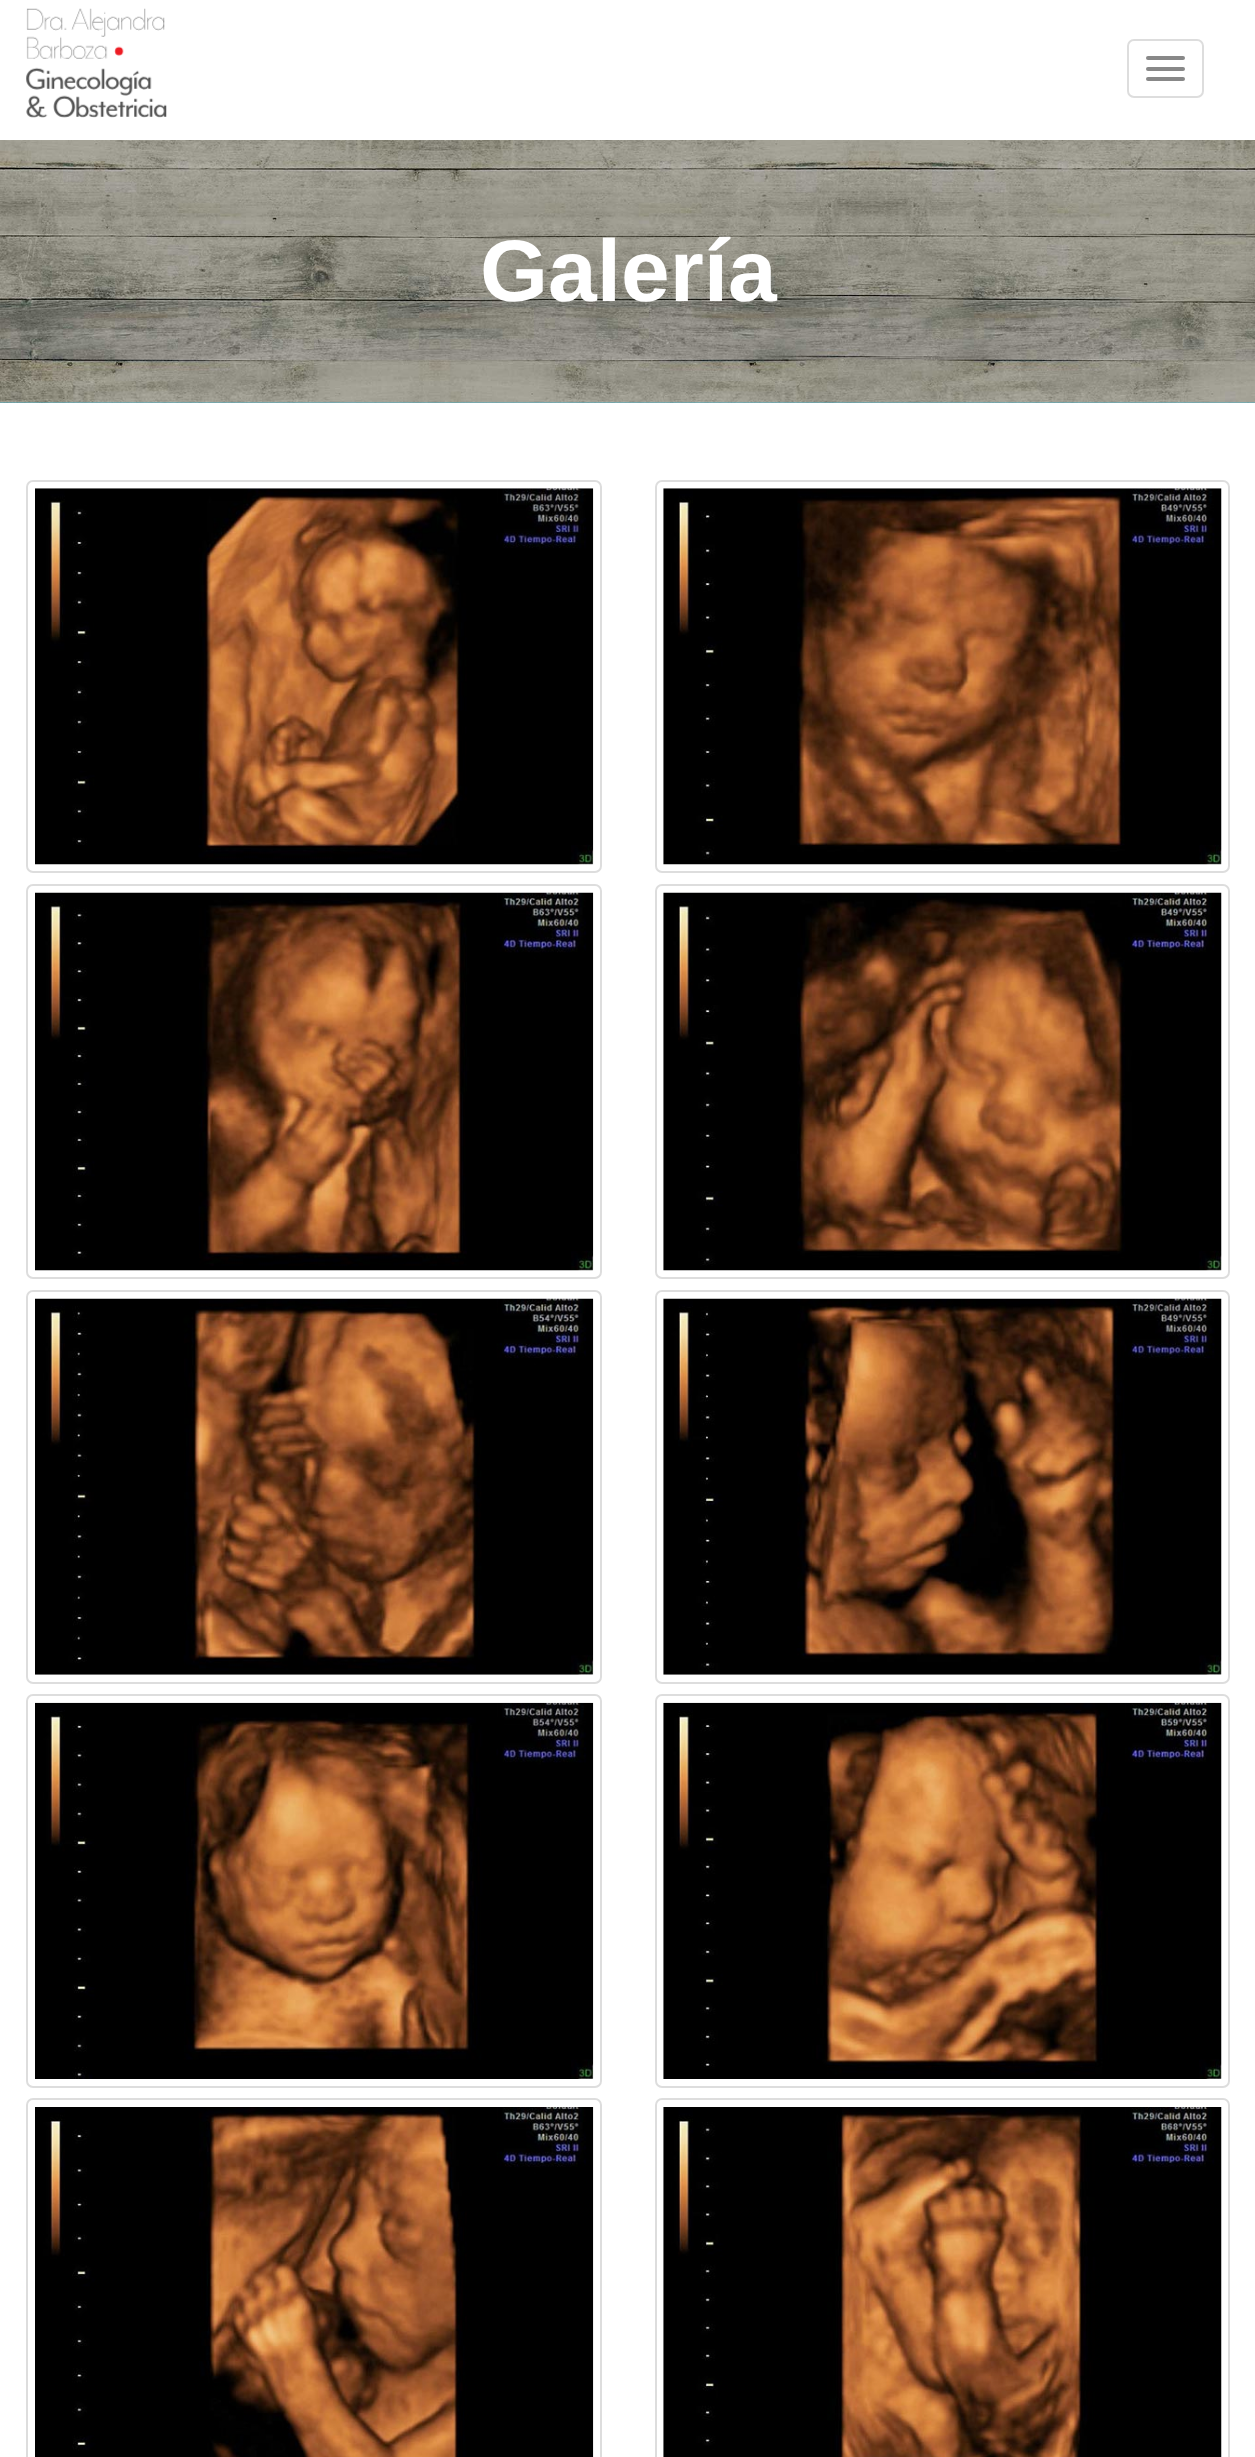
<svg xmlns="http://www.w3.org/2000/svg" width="1255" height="2457">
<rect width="100%" height="100%" fill="#fff"/>
<image x="26" y="8" width="141" height="110" href="media/1.png"/>
<rect x="1128" y="40" width="75" height="57" rx="6" fill="none" stroke="#ddd" stroke-width="2"/>
<rect x="1146" y="56" width="39" height="4" rx="2" fill="#888"/>
<rect x="1146" y="67" width="39" height="4" rx="2" fill="#888"/>
<rect x="1146" y="77" width="39" height="4" rx="2" fill="#888"/>
<rect y="402" width="1255" height="1" fill="#4fafc2"/>
<image x="0" y="140" width="1255" height="263" href="media/2.png"/>
<text x="480" y="301" style="font-family:Liberation Sans;font-size:87.5px;font-weight:bold;fill:#fff">Galería</text>
<rect x="27" y="481" width="574" height="391" rx="6" fill="none" stroke="#ddd" stroke-width="2"/>
<image x="35" y="488" width="559" height="377" href="media/3.png"/>
<rect x="656" y="481" width="573" height="391" rx="6" fill="none" stroke="#ddd" stroke-width="2"/>
<image x="663" y="488" width="559" height="377" href="media/4.png"/>
<rect x="27" y="885" width="574" height="393" rx="6" fill="none" stroke="#ddd" stroke-width="2"/>
<image x="35" y="892" width="559" height="379" href="media/5.png"/>
<rect x="656" y="885" width="573" height="393" rx="6" fill="none" stroke="#ddd" stroke-width="2"/>
<image x="663" y="892" width="559" height="379" href="media/6.png"/>
<rect x="27" y="1291" width="574" height="392" rx="6" fill="none" stroke="#ddd" stroke-width="2"/>
<image x="35" y="1298" width="559" height="377" href="media/7.png"/>
<rect x="656" y="1291" width="573" height="392" rx="6" fill="none" stroke="#ddd" stroke-width="2"/>
<image x="663" y="1298" width="559" height="377" href="media/8.png"/>
<rect x="27" y="1695" width="574" height="392" rx="6" fill="none" stroke="#ddd" stroke-width="2"/>
<image x="35" y="1702" width="559" height="377" href="media/9.png"/>
<rect x="656" y="1695" width="573" height="392" rx="6" fill="none" stroke="#ddd" stroke-width="2"/>
<image x="663" y="1702" width="559" height="377" href="media/10.png"/>
<rect x="27" y="2099" width="574" height="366" rx="6" fill="none" stroke="#ddd" stroke-width="2"/>
<image x="35" y="2107" width="559" height="350" href="media/11.png"/>
<rect x="656" y="2099" width="573" height="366" rx="6" fill="none" stroke="#ddd" stroke-width="2"/>
<image x="663" y="2107" width="559" height="350" href="media/12.png"/>
</svg>
